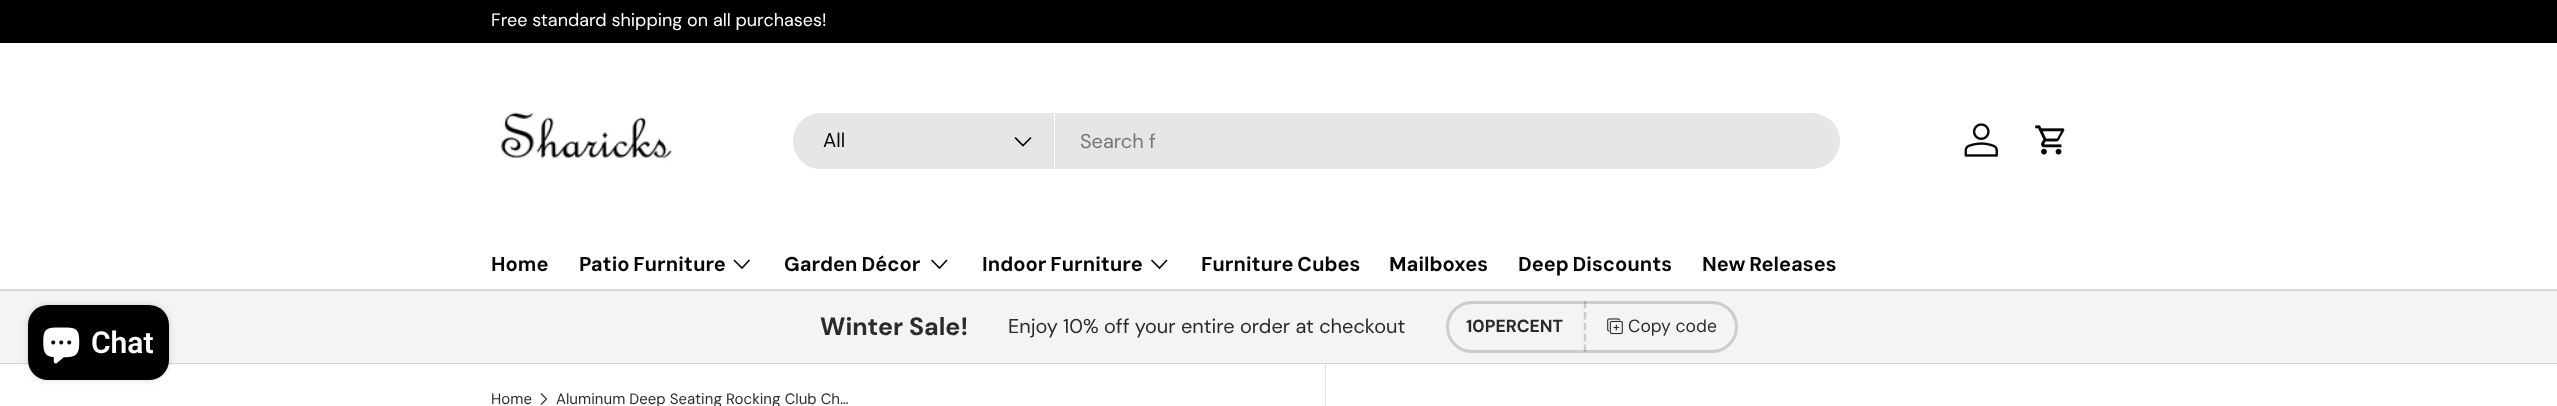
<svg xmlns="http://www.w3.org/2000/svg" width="2557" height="406">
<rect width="100%" height="100%" fill="#fff"/>
<rect width="2557" height="43" fill="#000"/>
<text x="491" y="26" style="font-family:'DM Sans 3';font-size:18px;fill:#fff">Free standard shipping on all purchases!</text>
<rect y="289" width="2557" height="1" fill="#dadada"/>
<image x="501" y="112" width="171" height="49" href="media/1.png"/>
<rect x="793" y="113" width="1047" height="56" rx="28" fill="#e6e6e6"/>
<path d="M821 113h234v56h-234c-15.5 0-28-12.5-28-28c0-15.5 12.5-28 28-28z" fill="#e6e6e6"/>
<rect x="1054" y="113" width="1" height="56" fill="#fff"/>
<text x="823" y="147" style="font-family:'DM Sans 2';font-size:20px;fill:#070707">All</text>
<path d="M1031 137.5l-8 8l-8-8" fill="none" stroke="#070707" stroke-width="1.6"/>
<text x="1080" y="148" style="font-family:'DM Sans 2';font-size:20px;fill:#777">Search f</text>
<image x="1964" y="123" width="34" height="34" href="media/2.png"/>
<image x="2035" y="125" width="30" height="30" href="media/3.png"/>
<text x="491" y="271" style="font-family:'DM Sans 3';font-size:20px;font-weight:bold;fill:#070707">Home</text>
<text x="579" y="271" word-spacing="-1" style="font-family:'DM Sans 3';font-size:20px;font-weight:bold;fill:#070707">Patio Furniture</text>
<path d="M749.5 260l-7.5 8l-8-8" fill="none" stroke="#070707" stroke-width="1.6"/>
<text x="784" y="271" word-spacing="-1" style="font-family:'DM Sans 3';font-size:20px;font-weight:bold;fill:#070707">Garden Décor</text>
<path d="M947 260l-7.5 8l-8-8" fill="none" stroke="#070707" stroke-width="1.6"/>
<text x="982" y="271" word-spacing="-1" style="font-family:'DM Sans 3';font-size:20px;font-weight:bold;fill:#070707">Indoor Furniture</text>
<path d="M1167 260l-7.5 8l-8-8" fill="none" stroke="#070707" stroke-width="1.6"/>
<text x="1201" y="271" word-spacing="-1" style="font-family:'DM Sans 3';font-size:20px;font-weight:bold;fill:#070707">Furniture Cubes</text>
<text x="1389" y="271" style="font-family:'DM Sans 3';font-size:20px;font-weight:bold;fill:#070707">Mailboxes</text>
<text x="1518" y="271" word-spacing="-1" style="font-family:'DM Sans 3';font-size:20px;font-weight:bold;fill:#070707">Deep Discounts</text>
<text x="1702" y="271" word-spacing="-1" style="font-family:'DM Sans 3';font-size:20px;font-weight:bold;fill:#070707">New Releases</text>
<rect y="291" width="2557" height="72" fill="#f4f4f4"/>
<rect y="290" width="2557" height="1" fill="#d6d6d6"/>
<rect y="363" width="2557" height="1" fill="#d6d6d6"/>
<text x="820" y="335" style="font-family:DM Sans;font-size:25px;font-weight:bold;fill:#2a2b2a">Winter Sale!</text>
<text x="1008" y="333" style="font-family:'DM Sans 2';font-size:20px;fill:#2a2b2a">Enjoy 10% off your entire order at checkout</text>
<rect x="1447.5" y="302.5" width="289" height="49" rx="24.5" fill="none" stroke="#ccc" stroke-width="3"/>
<text x="1466" y="332" style="font-family:'DM Sans 2';font-size:17.5px;font-weight:bold;fill:#2a2b2a">10PERCENT</text>
<path d="M1585 301v51.5" fill="none" stroke="#2a2b2a33" stroke-width="2.5" stroke-dasharray="7.5 3.44"/>
<image x="1607" y="318" width="16" height="17" href="media/4.png"/>
<text x="1628" y="332" style="font-family:DM Sans;font-size:17.5px;fill:#2a2b2a">Copy code</text>
<rect x="28" y="305" width="141" height="75" rx="20" fill="#00000026" filter="blur(3px)"/>
<rect x="28" y="305" width="141" height="75" rx="20" fill="#000"/>
<image x="43" y="327" width="37" height="37" href="media/5.png"/>
<text x="91" y="353" style="font-family:Roboto;font-size:30px;font-weight:600;fill:#fff">Chat</text>
<text x="491" y="404" style="font-family:DM Sans;font-size:15px;fill:#2a2b2a">Home</text>
<path d="M541 393.5l5.5 5.5l-5.5 5.5" fill="none" stroke="#2a2b2a" stroke-width="1.1"/>
<text x="556" y="404" style="font-family:DM Sans;font-size:15px;fill:#2a2b2a">Aluminum Deep Seating Rocking Club Ch…</text>
<rect x="1325" y="364" width="1" height="42" fill="#dfdfdf"/>
</svg>
